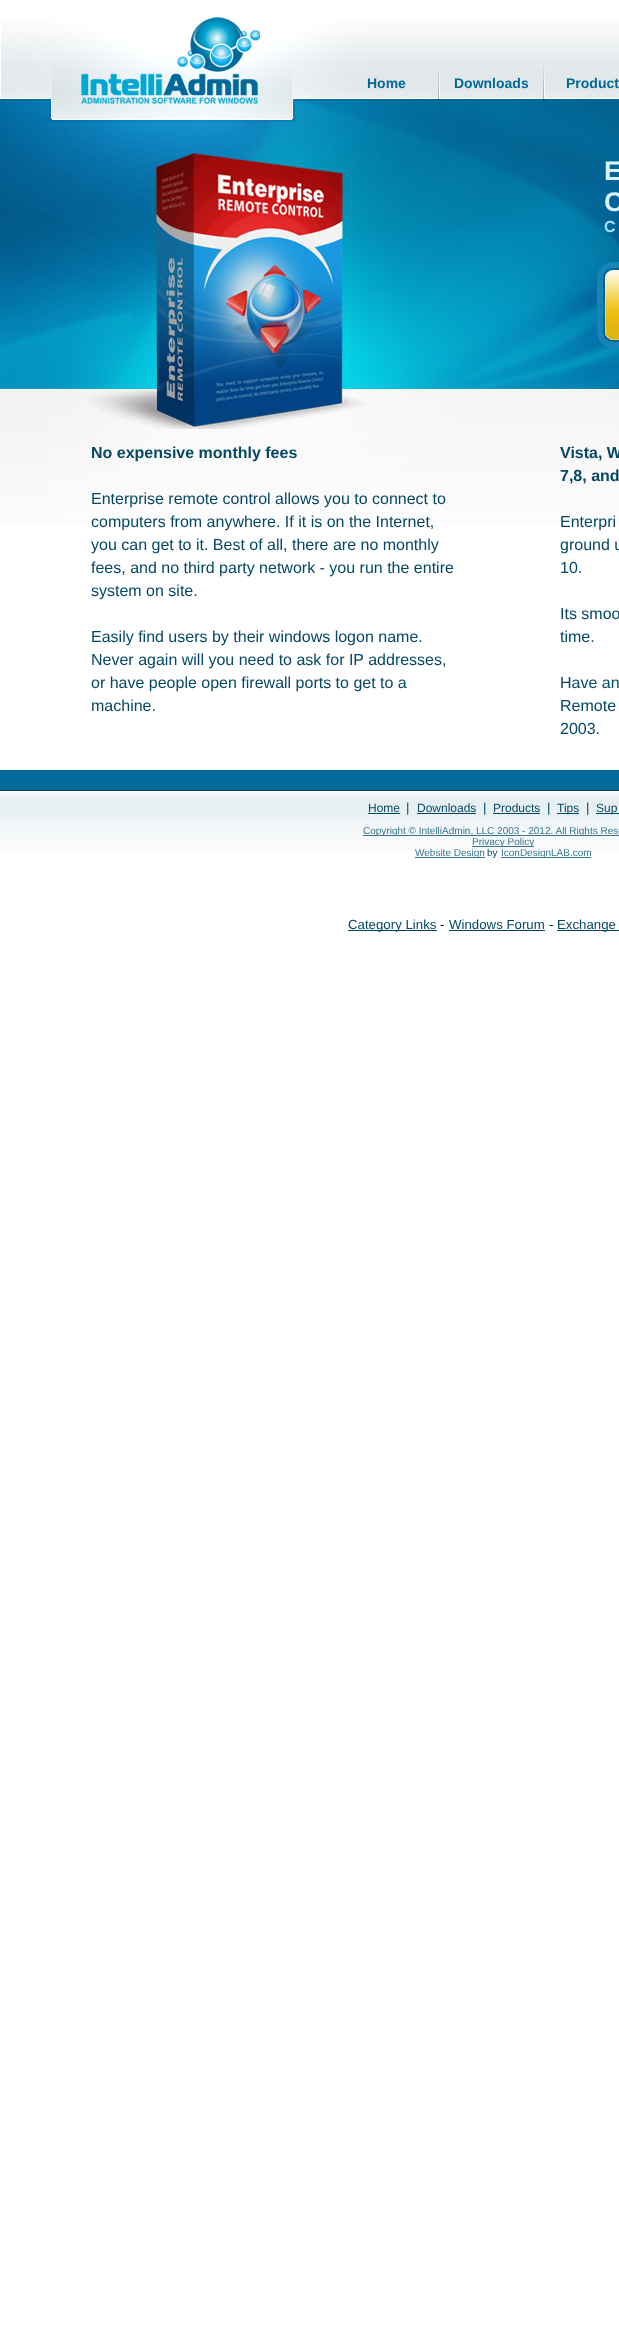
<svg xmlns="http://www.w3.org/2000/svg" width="619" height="2337">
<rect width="100%" height="100%" fill="#fff"/>
<image x="0" y="20" width="619" height="102" href="media/1.png"/>
<image x="50" y="17" width="244" height="105" href="media/2.png"/>
<text x="367" y="88" style="font-family:Liberation Sans;font-size:14px;font-weight:bold;fill:#006998">Home</text>
<image x="438" y="63" width="2" height="38" href="media/3.png"/>
<text x="454" y="88" style="font-family:Liberation Sans;font-size:14px;font-weight:bold;fill:#006998">Downloads</text>
<image x="543" y="63" width="2" height="38" href="media/3.png"/>
<text x="566" y="88" style="font-family:Liberation Sans;font-size:14px;font-weight:bold;fill:#006998">Product</text>
<image x="0" y="122" width="619" height="401" href="media/4.png"/>
<image x="89" y="151" width="278" height="278" href="media/5.png"/>
<text x="604" y="180" style="font-family:Liberation Sans;font-size:27px;font-weight:bold;fill:#daf3fa">E</text>
<text x="604" y="211" style="font-family:Liberation Sans;font-size:27px;font-weight:bold;fill:#daf3fa">C</text>
<text x="604" y="232" style="font-family:Liberation Sans;font-size:16px;font-weight:bold;fill:#a1def6">C</text>
<image x="597" y="262" width="22" height="86" href="media/6.png"/>
<text x="91" y="458" style="font-family:Liberation Sans;font-size:16px;font-weight:bold;fill:#054865">No expensive monthly fees</text>
<text x="91" y="504" style="font-family:Liberation Sans;font-size:16px;fill:#054865">Enterprise remote control allows you to connect to</text>
<text x="91" y="527" style="font-family:Liberation Sans;font-size:16px;fill:#054865">computers from anywhere. If it is on the Internet,</text>
<text x="91" y="550" style="font-family:Liberation Sans;font-size:16px;fill:#054865">you can get to it. Best of all, there are no monthly</text>
<text x="91" y="573" style="font-family:Liberation Sans;font-size:16px;fill:#054865">fees, and no third party network - you run the entire</text>
<text x="91" y="596" style="font-family:Liberation Sans;font-size:16px;fill:#054865">system on site.</text>
<text x="91" y="642" style="font-family:Liberation Sans;font-size:16px;fill:#054865">Easily find users by their windows logon name.</text>
<text x="91" y="665" style="font-family:Liberation Sans;font-size:16px;fill:#054865">Never again will you need to ask for IP addresses,</text>
<text x="91" y="688" style="font-family:Liberation Sans;font-size:16px;fill:#054865">or have people open firewall ports to get to a</text>
<text x="91" y="711" style="font-family:Liberation Sans;font-size:16px;fill:#054865">machine.</text>
<text x="560" y="458" style="font-family:Liberation Sans;font-size:16px;font-weight:bold;fill:#054865">Vista, W</text>
<text x="560" y="481" style="font-family:Liberation Sans;font-size:16px;font-weight:bold;fill:#054865">7,8, and</text>
<text x="560" y="527" style="font-family:Liberation Sans;font-size:16px;fill:#054865">Enterpri</text>
<text x="560" y="550" style="font-family:Liberation Sans;font-size:16px;fill:#054865">ground u</text>
<text x="560" y="573" style="font-family:Liberation Sans;font-size:16px;fill:#054865">10.</text>
<text x="560" y="619" style="font-family:Liberation Sans;font-size:16px;fill:#054865">Its smoo</text>
<text x="560" y="642" style="font-family:Liberation Sans;font-size:16px;fill:#054865">time.</text>
<text x="560" y="688" style="font-family:Liberation Sans;font-size:16px;fill:#054865">Have an</text>
<text x="560" y="711" style="font-family:Liberation Sans;font-size:16px;fill:#054865">Remote</text>
<text x="560" y="734" style="font-family:Liberation Sans;font-size:16px;fill:#054865">2003.</text>
<image x="0" y="770" width="619" height="82" href="media/7.png"/>
<text x="368" y="812" style="font-family:Liberation Sans;font-size:12px;fill:#054865">Home</text>
<rect x="368" y="813" width="32" height="1" fill="#054865"/>
<text x="406" y="812" style="font-family:Liberation Sans;font-size:13.25px;fill:#054865">|</text>
<text x="417" y="812" style="font-family:Liberation Sans;font-size:12px;fill:#054865">Downloads</text>
<rect x="417" y="813" width="59" height="1" fill="#054865"/>
<text x="483" y="812" style="font-family:Liberation Sans;font-size:13.25px;fill:#054865">|</text>
<text x="493" y="812" style="font-family:Liberation Sans;font-size:12px;fill:#054865">Products</text>
<rect x="493" y="813" width="47" height="1" fill="#054865"/>
<text x="547" y="812" style="font-family:Liberation Sans;font-size:13.25px;fill:#054865">|</text>
<rect x="557" y="813" width="22" height="1" fill="#054865"/>
<text x="557" y="812" style="font-family:Liberation Sans;font-size:12px;fill:#054865">Tips</text>
<text x="586" y="812" style="font-family:Liberation Sans;font-size:13.25px;fill:#054865">|</text>
<rect x="596" y="813" width="23" height="1" fill="#054865"/>
<text x="596" y="812" style="font-family:Liberation Sans;font-size:12px;fill:#054865">Sup</text>
<rect x="363" y="835" width="256" height="1" fill="#377590"/>
<text x="363" y="834" style="font-family:Liberation Sans;font-size:10px;fill:#377590">Copyright © IntelliAdmin, LLC 2003 - 2012. All Rights Rese</text>
<rect x="472" y="846" width="62" height="1" fill="#377590"/>
<text x="472" y="845" style="font-family:Liberation Sans;font-size:10px;fill:#377590">Privacy Policy</text>
<rect x="415" y="857" width="70" height="1" fill="#377590"/>
<text x="415" y="856" style="font-family:Liberation Sans;font-size:10px;fill:#377590">Website Design</text>
<text x="487" y="856" style="font-family:Liberation Sans;font-size:10px;fill:#054865">by</text>
<rect x="501" y="857" width="90" height="1" fill="#377590"/>
<text x="501" y="856" style="font-family:Liberation Sans;font-size:10px;fill:#377590">IconDesignLAB.com</text>
<rect x="348" y="930" width="89" height="1" fill="#054865"/>
<text x="348" y="929" style="font-family:Liberation Sans;font-size:13.25px;fill:#054865">Category Links</text>
<text x="440" y="929" style="font-family:Liberation Sans;font-size:13.25px;fill:#000">-</text>
<text x="449" y="929" style="font-family:Liberation Sans;font-size:13.25px;fill:#054865">Windows Forum</text>
<rect x="449" y="930" width="96" height="1" fill="#054865"/>
<text x="549" y="929" style="font-family:Liberation Sans;font-size:13.25px;fill:#000">-</text>
<rect x="557" y="930" width="62" height="1" fill="#054865"/>
<text x="557" y="929" style="font-family:Liberation Sans;font-size:13.25px;fill:#054865">Exchange</text>
</svg>
